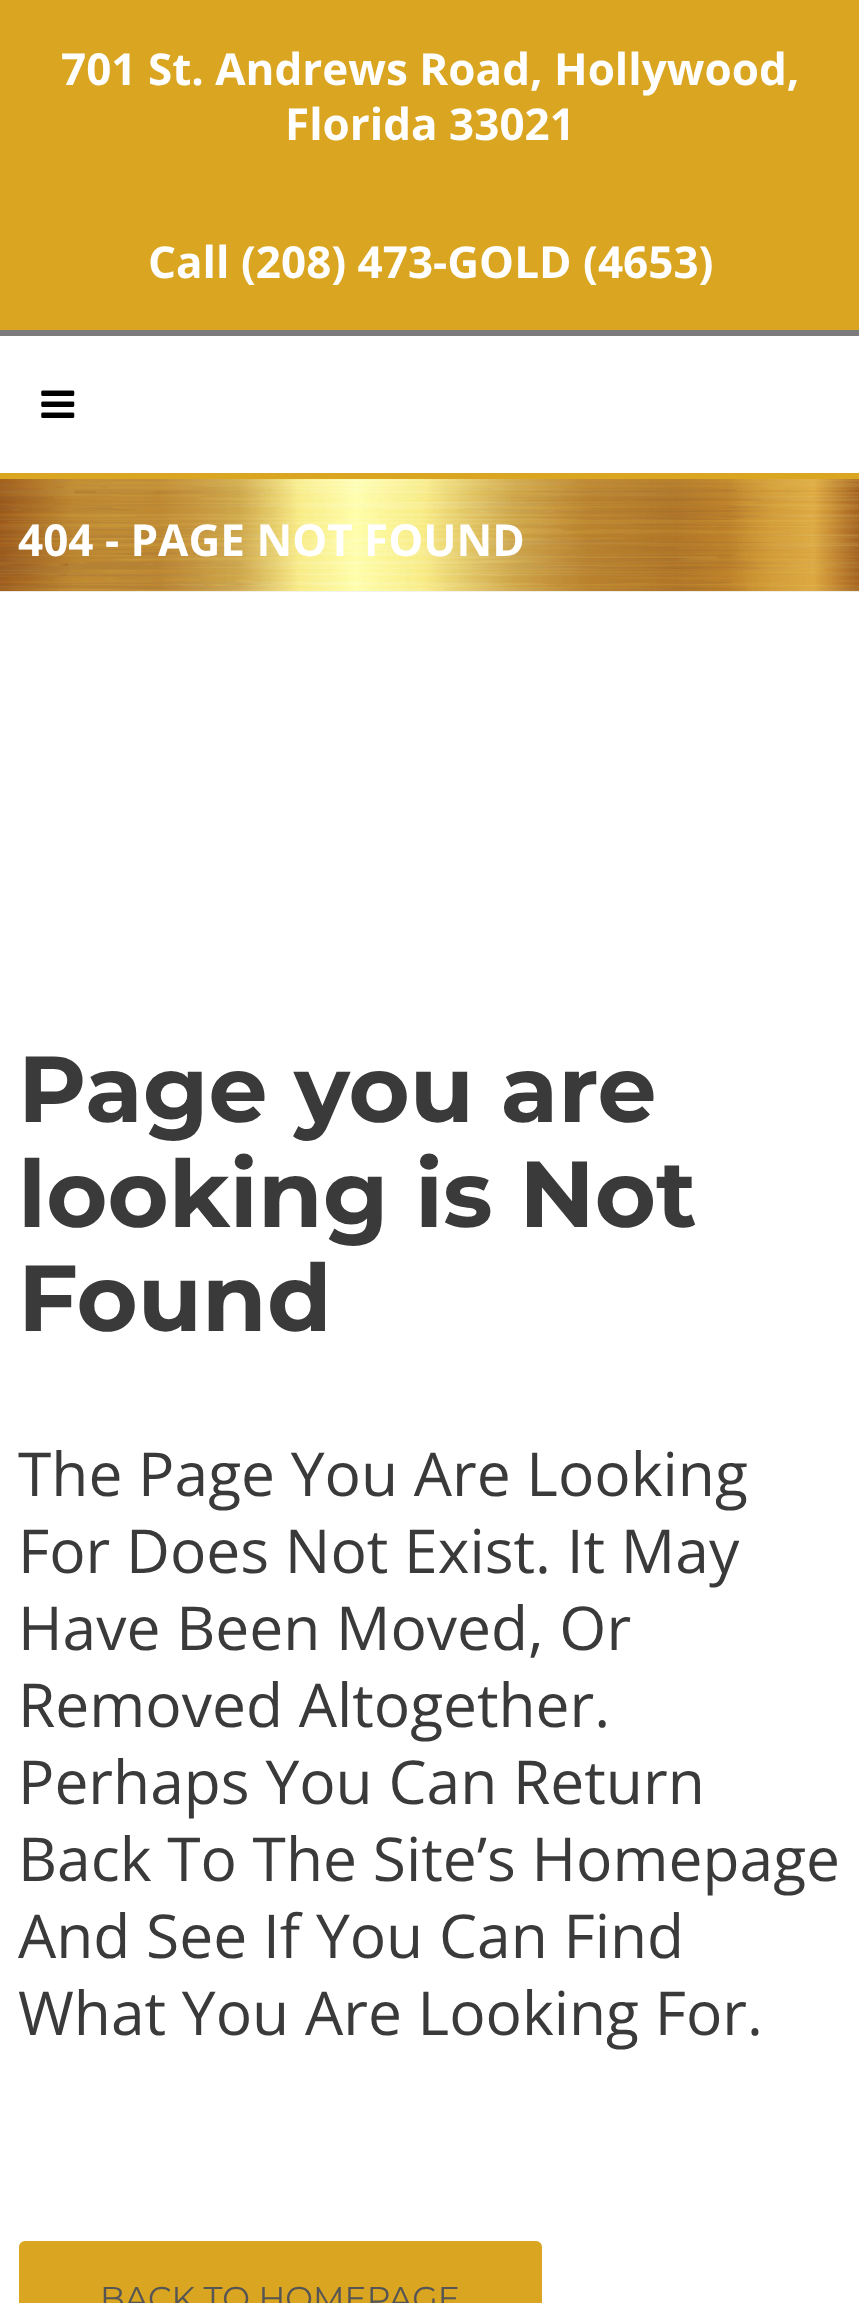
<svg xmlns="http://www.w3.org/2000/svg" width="859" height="2303">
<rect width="100%" height="100%" fill="#fff"/>
<rect width="859" height="330" fill="#daa520"/>
<rect y="330" width="859" height="6" fill="#7c7c7c"/>
<text x="61" y="85" style="font-family:Open Sans;font-size:44px;font-weight:bold;fill:#fff">701 St. Andrews Road, Hollywood,</text>
<text x="285" y="140" style="font-family:Open Sans;font-size:44px;font-weight:bold;fill:#fff">Florida 33021</text>
<text x="148" y="278" style="font-family:Open Sans;font-size:44px;font-weight:bold;fill:#fff">Call (208) 473-GOLD (4653)</text>
<rect y="473" width="859" height="6" fill="#daa520"/>
<image x="41" y="390" width="34" height="28" href="media/1.png"/>
<image x="0" y="591" width="859" height="1" href="media/2.png"/>
<image x="0" y="479" width="859" height="113" href="media/3.png"/>
<text x="18" y="556" style="font-family:Open Sans;font-size:44px;font-weight:bold;fill:#fff">404 - PAGE NOT FOUND</text>
<text x="18" y="1122" style="font-family:Montserrat;font-size:93.5px;font-weight:bold;fill:#3a3a3a">Page you are</text>
<text x="18" y="1227" style="font-family:Montserrat;font-size:93.5px;font-weight:bold;fill:#3a3a3a">looking is Not</text>
<text x="18" y="1331" style="font-family:Montserrat;font-size:93.5px;font-weight:bold;fill:#3a3a3a">Found</text>
<text x="18" y="1496" style="font-family:Open Sans;font-size:60.5px;fill:#3a3a3a">The Page You Are Looking</text>
<text x="18" y="1573" style="font-family:Open Sans;font-size:60.5px;fill:#3a3a3a">For Does Not Exist. It May</text>
<text x="18" y="1650" style="font-family:Open Sans;font-size:60.5px;fill:#3a3a3a">Have Been Moved, Or</text>
<text x="18" y="1727" style="font-family:Open Sans;font-size:60.5px;fill:#3a3a3a">Removed Altogether.</text>
<text x="18" y="1804" style="font-family:Open Sans;font-size:60.5px;fill:#3a3a3a">Perhaps You Can Return</text>
<text x="18" y="1881" style="font-family:Open Sans;font-size:60.5px;fill:#3a3a3a">Back To The Site’s Homepage</text>
<text x="18" y="1958" style="font-family:Open Sans;font-size:60.5px;fill:#3a3a3a">And See If You Can Find</text>
<text x="18" y="2035" style="font-family:Open Sans;font-size:60.5px;fill:#3a3a3a">What You Are Looking For.</text>
<rect x="22" y="2244" width="517" height="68" rx="3" fill="#daa520" stroke="#daa520" stroke-width="6"/>
<text x="100" y="2310" style="font-family:Montserrat;font-size:33px;fill:#555">BACK TO HOMEPAGE</text>
</svg>
